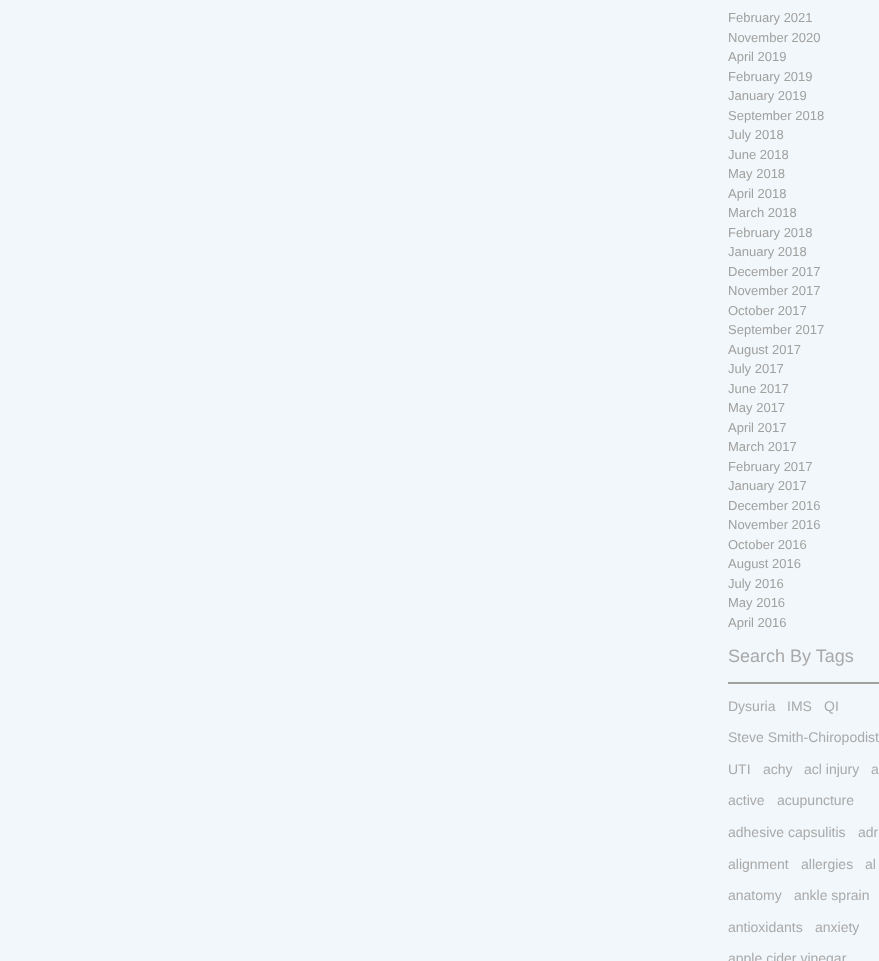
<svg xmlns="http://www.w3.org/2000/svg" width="879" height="961">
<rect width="100%" height="100%" fill="#f2f7fb"/>
<text x="728" y="22" style="font-family:Liberation Sans;font-size:13px;fill:#a0a09f">February 2021</text>
<text x="728" y="42" style="font-family:Liberation Sans;font-size:13px;fill:#a0a09f">November 2020</text>
<text x="728" y="61" style="font-family:Liberation Sans;font-size:13px;fill:#a0a09f">April 2019</text>
<text x="728" y="81" style="font-family:Liberation Sans;font-size:13px;fill:#a0a09f">February 2019</text>
<text x="728" y="100" style="font-family:Liberation Sans;font-size:13px;fill:#a0a09f">January 2019</text>
<text x="728" y="120" style="font-family:Liberation Sans;font-size:13px;fill:#a0a09f">September 2018</text>
<text x="728" y="139" style="font-family:Liberation Sans;font-size:13px;fill:#a0a09f">July 2018</text>
<text x="728" y="159" style="font-family:Liberation Sans;font-size:13px;fill:#a0a09f">June 2018</text>
<text x="728" y="178" style="font-family:Liberation Sans;font-size:13px;fill:#a0a09f">May 2018</text>
<text x="728" y="198" style="font-family:Liberation Sans;font-size:13px;fill:#a0a09f">April 2018</text>
<text x="728" y="217" style="font-family:Liberation Sans;font-size:13px;fill:#a0a09f">March 2018</text>
<text x="728" y="237" style="font-family:Liberation Sans;font-size:13px;fill:#a0a09f">February 2018</text>
<text x="728" y="256" style="font-family:Liberation Sans;font-size:13px;fill:#a0a09f">January 2018</text>
<text x="728" y="276" style="font-family:Liberation Sans;font-size:13px;fill:#a0a09f">December 2017</text>
<text x="728" y="295" style="font-family:Liberation Sans;font-size:13px;fill:#a0a09f">November 2017</text>
<text x="728" y="315" style="font-family:Liberation Sans;font-size:13px;fill:#a0a09f">October 2017</text>
<text x="728" y="334" style="font-family:Liberation Sans;font-size:13px;fill:#a0a09f">September 2017</text>
<text x="728" y="354" style="font-family:Liberation Sans;font-size:13px;fill:#a0a09f">August 2017</text>
<text x="728" y="373" style="font-family:Liberation Sans;font-size:13px;fill:#a0a09f">July 2017</text>
<text x="728" y="393" style="font-family:Liberation Sans;font-size:13px;fill:#a0a09f">June 2017</text>
<text x="728" y="412" style="font-family:Liberation Sans;font-size:13px;fill:#a0a09f">May 2017</text>
<text x="728" y="432" style="font-family:Liberation Sans;font-size:13px;fill:#a0a09f">April 2017</text>
<text x="728" y="451" style="font-family:Liberation Sans;font-size:13px;fill:#a0a09f">March 2017</text>
<text x="728" y="471" style="font-family:Liberation Sans;font-size:13px;fill:#a0a09f">February 2017</text>
<text x="728" y="490" style="font-family:Liberation Sans;font-size:13px;fill:#a0a09f">January 2017</text>
<text x="728" y="510" style="font-family:Liberation Sans;font-size:13px;fill:#a0a09f">December 2016</text>
<text x="728" y="529" style="font-family:Liberation Sans;font-size:13px;fill:#a0a09f">November 2016</text>
<text x="728" y="549" style="font-family:Liberation Sans;font-size:13px;fill:#a0a09f">October 2016</text>
<text x="728" y="568" style="font-family:Liberation Sans;font-size:13px;fill:#a0a09f">August 2016</text>
<text x="728" y="588" style="font-family:Liberation Sans;font-size:13px;fill:#a0a09f">July 2016</text>
<text x="728" y="607" style="font-family:Liberation Sans;font-size:13px;fill:#a0a09f">May 2016</text>
<text x="728" y="627" style="font-family:Liberation Sans;font-size:13px;fill:#a0a09f">April 2016</text>
<text x="728" y="662" style="font-family:Liberation Sans;font-size:18px;fill:#a9a9a9">Search By Tags</text>
<rect x="728" y="682" width="151" height="2" fill="#a0a09f"/>
<text x="728" y="711" style="font-family:Liberation Sans;font-size:14px;fill:#a9a9a9">Dysuria</text>
<text x="787" y="711" style="font-family:Liberation Sans;font-size:14px;fill:#a9a9a9">IMS</text>
<text x="824" y="711" style="font-family:Liberation Sans;font-size:14px;fill:#a9a9a9">QI</text>
<text x="728" y="742" style="font-family:Liberation Sans;font-size:14px;fill:#a9a9a9">Steve Smith-Chiropodist</text>
<text x="728" y="774" style="font-family:Liberation Sans;font-size:14px;fill:#a9a9a9">UTI</text>
<text x="763" y="774" style="font-family:Liberation Sans;font-size:14px;fill:#a9a9a9">achy</text>
<text x="804" y="774" style="font-family:Liberation Sans;font-size:14px;fill:#a9a9a9">acl injury</text>
<text x="871" y="774" style="font-family:Liberation Sans;font-size:14px;fill:#a9a9a9">a</text>
<text x="728" y="805" style="font-family:Liberation Sans;font-size:14px;fill:#a9a9a9">active</text>
<text x="777" y="805" style="font-family:Liberation Sans;font-size:14px;fill:#a9a9a9">acupuncture</text>
<text x="728" y="837" style="font-family:Liberation Sans;font-size:14px;fill:#a9a9a9">adhesive capsulitis</text>
<text x="858" y="837" style="font-family:Liberation Sans;font-size:14px;fill:#a9a9a9">adr</text>
<text x="728" y="869" style="font-family:Liberation Sans;font-size:14px;fill:#a9a9a9">alignment</text>
<text x="801" y="869" style="font-family:Liberation Sans;font-size:14px;fill:#a9a9a9">allergies</text>
<text x="865" y="869" style="font-family:Liberation Sans;font-size:14px;fill:#a9a9a9">al</text>
<text x="728" y="900" style="font-family:Liberation Sans;font-size:14px;fill:#a9a9a9">anatomy</text>
<text x="794" y="900" style="font-family:Liberation Sans;font-size:14px;fill:#a9a9a9">ankle sprain</text>
<text x="728" y="932" style="font-family:Liberation Sans;font-size:14px;fill:#a9a9a9">antioxidants</text>
<text x="815" y="932" style="font-family:Liberation Sans;font-size:14px;fill:#a9a9a9">anxiety</text>
<text x="728" y="963" style="font-family:Liberation Sans;font-size:14px;fill:#a9a9a9">apple cider vinegar</text>
</svg>
